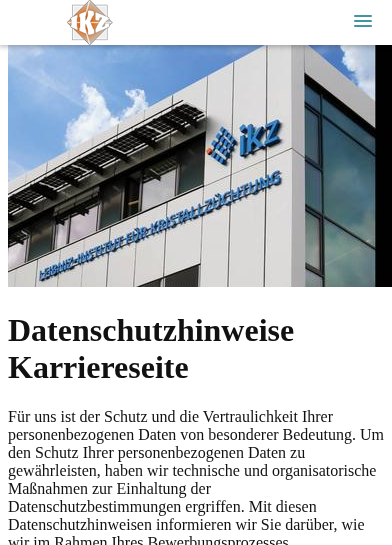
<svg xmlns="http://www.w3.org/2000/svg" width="392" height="545">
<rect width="100%" height="100%" fill="#fff"/>
<image x="8" y="45" width="384" height="500" href="media/2.png"/>
<rect x="-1" width="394" height="47" fill="#00000040" filter="blur(2.5px)"/>
<rect width="392" height="45" fill="#fff"/>
<image x="67" y="0" width="46" height="45" href="media/1.png"/>
<rect x="354" y="15" width="18" height="2" rx="1" fill="#4396a1"/>
<rect x="354" y="20" width="18" height="2" rx="1" fill="#4396a1"/>
<rect x="354" y="25" width="18" height="2" rx="1" fill="#4396a1"/>
</svg>
